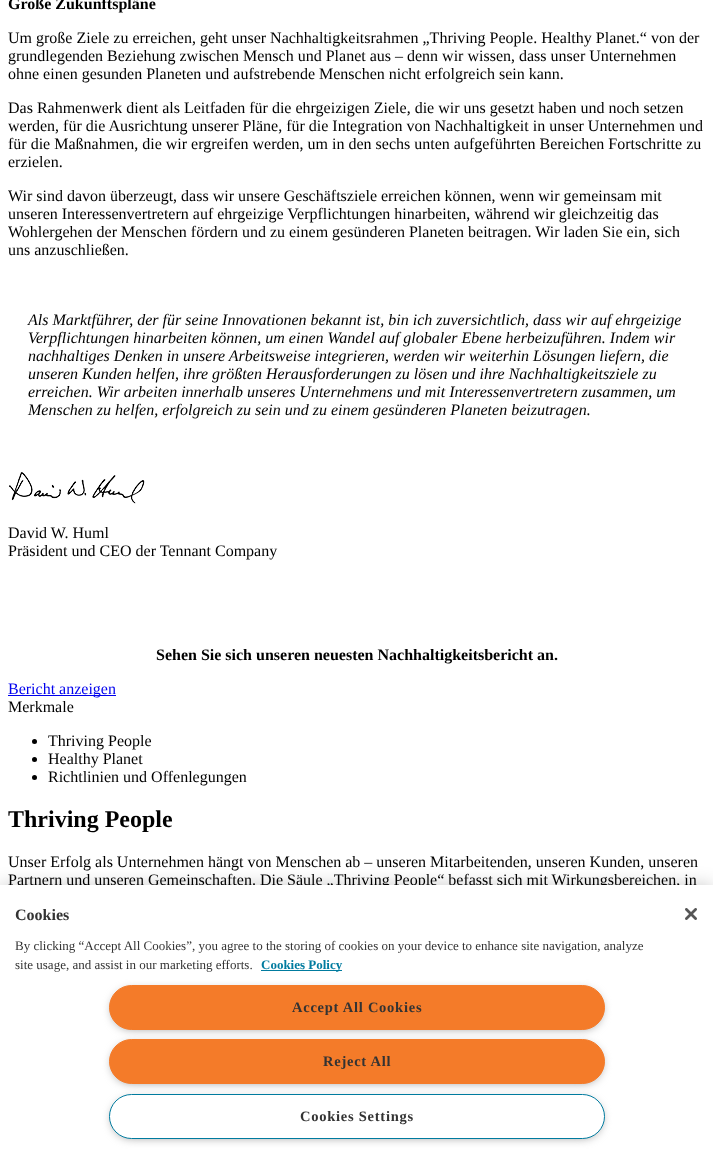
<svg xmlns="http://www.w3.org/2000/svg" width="713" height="1169">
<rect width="100%" height="100%" fill="#fff"/>
<text x="8" y="9" style="font-family:Liberation Serif;font-size:16px;font-weight:bold;fill:#000">Große Zukunftspläne</text>
<text x="8" y="43" style="font-family:Liberation Serif;font-size:16px;fill:#000">Um große Ziele zu erreichen, geht unser Nachhaltigkeitsrahmen „Thriving People. Healthy Planet.“ von der</text>
<text x="8" y="61" style="font-family:Liberation Serif;font-size:16px;fill:#000">grundlegenden Beziehung zwischen Mensch und Planet aus – denn wir wissen, dass unser Unternehmen</text>
<text x="8" y="79" style="font-family:Liberation Serif;font-size:16px;fill:#000">ohne einen gesunden Planeten und aufstrebende Menschen nicht erfolgreich sein kann.</text>
<text x="8" y="113" style="font-family:Liberation Serif;font-size:16px;fill:#000">Das Rahmenwerk dient als Leitfaden für die ehrgeizigen Ziele, die wir uns gesetzt haben und noch setzen</text>
<text x="8" y="131" style="font-family:Liberation Serif;font-size:16px;fill:#000">werden, für die Ausrichtung unserer Pläne, für die Integration von Nachhaltigkeit in unser Unternehmen und</text>
<text x="8" y="149" style="font-family:Liberation Serif;font-size:16px;fill:#000">für die Maßnahmen, die wir ergreifen werden, um in den sechs unten aufgeführten Bereichen Fortschritte zu</text>
<text x="8" y="167" style="font-family:Liberation Serif;font-size:16px;fill:#000">erzielen.</text>
<text x="8" y="201" style="font-family:Liberation Serif;font-size:16px;fill:#000">Wir sind davon überzeugt, dass wir unsere Geschäftsziele erreichen können, wenn wir gemeinsam mit</text>
<text x="8" y="219" style="font-family:Liberation Serif;font-size:16px;fill:#000">unseren Interessenvertretern auf ehrgeizige Verpflichtungen hinarbeiten, während wir gleichzeitig das</text>
<text x="8" y="237" style="font-family:Liberation Serif;font-size:16px;fill:#000">Wohlergehen der Menschen fördern und zu einem gesünderen Planeten beitragen. Wir laden Sie ein, sich</text>
<text x="8" y="255" style="font-family:Liberation Serif;font-size:16px;fill:#000">uns anzuschließen.</text>
<text x="28" y="325" style="font-family:Liberation Serif;font-size:16px;font-style:italic;fill:#000">Als Marktführer, der für seine Innovationen bekannt ist, bin ich zuversichtlich, dass wir auf ehrgeizige</text>
<text x="28" y="343" style="font-family:Liberation Serif;font-size:16px;font-style:italic;fill:#000">Verpflichtungen hinarbeiten können, um einen Wandel auf globaler Ebene herbeizuführen. Indem wir</text>
<text x="28" y="361" style="font-family:Liberation Serif;font-size:16px;font-style:italic;fill:#000">nachhaltiges Denken in unsere Arbeitsweise integrieren, werden wir weiterhin Lösungen liefern, die</text>
<text x="28" y="379" style="font-family:Liberation Serif;font-size:16px;font-style:italic;fill:#000">unseren Kunden helfen, ihre größten Herausforderungen zu lösen und ihre Nachhaltigkeitsziele zu</text>
<text x="28" y="397" style="font-family:Liberation Serif;font-size:16px;font-style:italic;fill:#000">erreichen. Wir arbeiten innerhalb unseres Unternehmens und mit Interessenvertretern zusammen, um</text>
<text x="28" y="415" style="font-family:Liberation Serif;font-size:16px;font-style:italic;fill:#000">Menschen zu helfen, erfolgreich zu sein und zu einem gesünderen Planeten beizutragen.</text>
<image x="9" y="472" width="136" height="32" href="media/1.png"/>
<text x="8" y="538" style="font-family:Liberation Serif;font-size:16px;fill:#000">David W. Huml</text>
<text x="8" y="556" style="font-family:Liberation Serif;font-size:16px;fill:#000">Präsident und CEO der Tennant Company</text>
<text x="156" y="660" style="font-family:Liberation Serif;font-size:16px;font-weight:bold;fill:#000">Sehen Sie sich unseren neuesten Nachhaltigkeitsbericht an.</text>
<rect x="8" y="695" width="108" height="1" fill="#00e"/>
<text x="8" y="694" style="font-family:Liberation Serif;font-size:16px;fill:#00e">Bericht anzeigen</text>
<text x="8" y="712" style="font-family:Liberation Serif;font-size:16px;fill:#000">Merkmale</text>
<circle cx="34.5" cy="741.5" r="2.5" fill="#000"/>
<text x="48" y="746" style="font-family:Liberation Serif;font-size:16px;fill:#000">Thriving People</text>
<circle cx="34.5" cy="759.5" r="2.5" fill="#000"/>
<text x="48" y="764" style="font-family:Liberation Serif;font-size:16px;fill:#000">Healthy Planet</text>
<circle cx="34.5" cy="777.5" r="2.5" fill="#000"/>
<text x="48" y="782" style="font-family:Liberation Serif;font-size:16px;fill:#000">Richtlinien und Offenlegungen</text>
<text x="8" y="827" style="font-family:Liberation Serif;font-size:24px;font-weight:bold;fill:#000">Thriving People</text>
<text x="8" y="867" style="font-family:Liberation Serif;font-size:16px;fill:#000">Unser Erfolg als Unternehmen hängt von Menschen ab – unseren Mitarbeitenden, unseren Kunden, unseren</text>
<text x="8" y="885" style="font-family:Liberation Serif;font-size:16px;fill:#000">Partnern und unseren Gemeinschaften. Die Säule „Thriving People“ befasst sich mit Wirkungsbereichen, in</text>
<rect y="885" width="713" height="284" fill="#00000033" filter="blur(9px)"/>
<rect y="885" width="713" height="284" fill="#fff"/>
<text x="15" y="920" style="font-family:Liberation Serif;font-size:16px;font-weight:bold;fill:#333">Cookies</text>
<text x="15" y="950" style="font-family:Liberation Serif;font-size:13px;fill:#333">By clicking “Accept All Cookies”, you agree to the storing of cookies on your device to enhance site navigation, analyze</text>
<text x="15" y="969" style="font-family:Liberation Serif;font-size:13px;fill:#333">site usage, and assist in our marketing efforts.</text>
<rect x="261" y="970" width="81" height="1" fill="#007b9f"/>
<text x="261" y="969" style="font-family:Liberation Serif;font-size:13px;font-weight:bold;fill:#007b9f">Cookies Policy</text>
<rect x="112" y="990" width="490" height="39" rx="19.5" fill="#999" filter="blur(5px)"/>
<rect x="109.5" y="985.5" width="495" height="44" rx="22" fill="#f47b29" stroke="#f47b29"/>
<text x="292" y="1012" style="font-family:Liberation Serif;font-size:14.5px;font-weight:bold;letter-spacing:0.75px;fill:#333">Accept All Cookies</text>
<rect x="112" y="1044" width="490" height="39" rx="19.5" fill="#999" filter="blur(5px)"/>
<rect x="109.5" y="1039.5" width="495" height="44" rx="22" fill="#f47b29" stroke="#f47b29"/>
<text x="323" y="1066" style="font-family:Liberation Serif;font-size:14.5px;font-weight:bold;letter-spacing:0.75px;fill:#333">Reject All</text>
<rect x="112" y="1099" width="490" height="39" rx="19.5" fill="#999" filter="blur(5px)"/>
<rect x="109.5" y="1094.5" width="495" height="44" rx="22" fill="#fff" stroke="#007b9f"/>
<text x="300" y="1121" style="font-family:Liberation Serif;font-size:14.5px;font-weight:bold;letter-spacing:0.75px;fill:#333">Cookies Settings</text>
<image x="685" y="908" width="12" height="12" href="media/2.png"/>
</svg>
